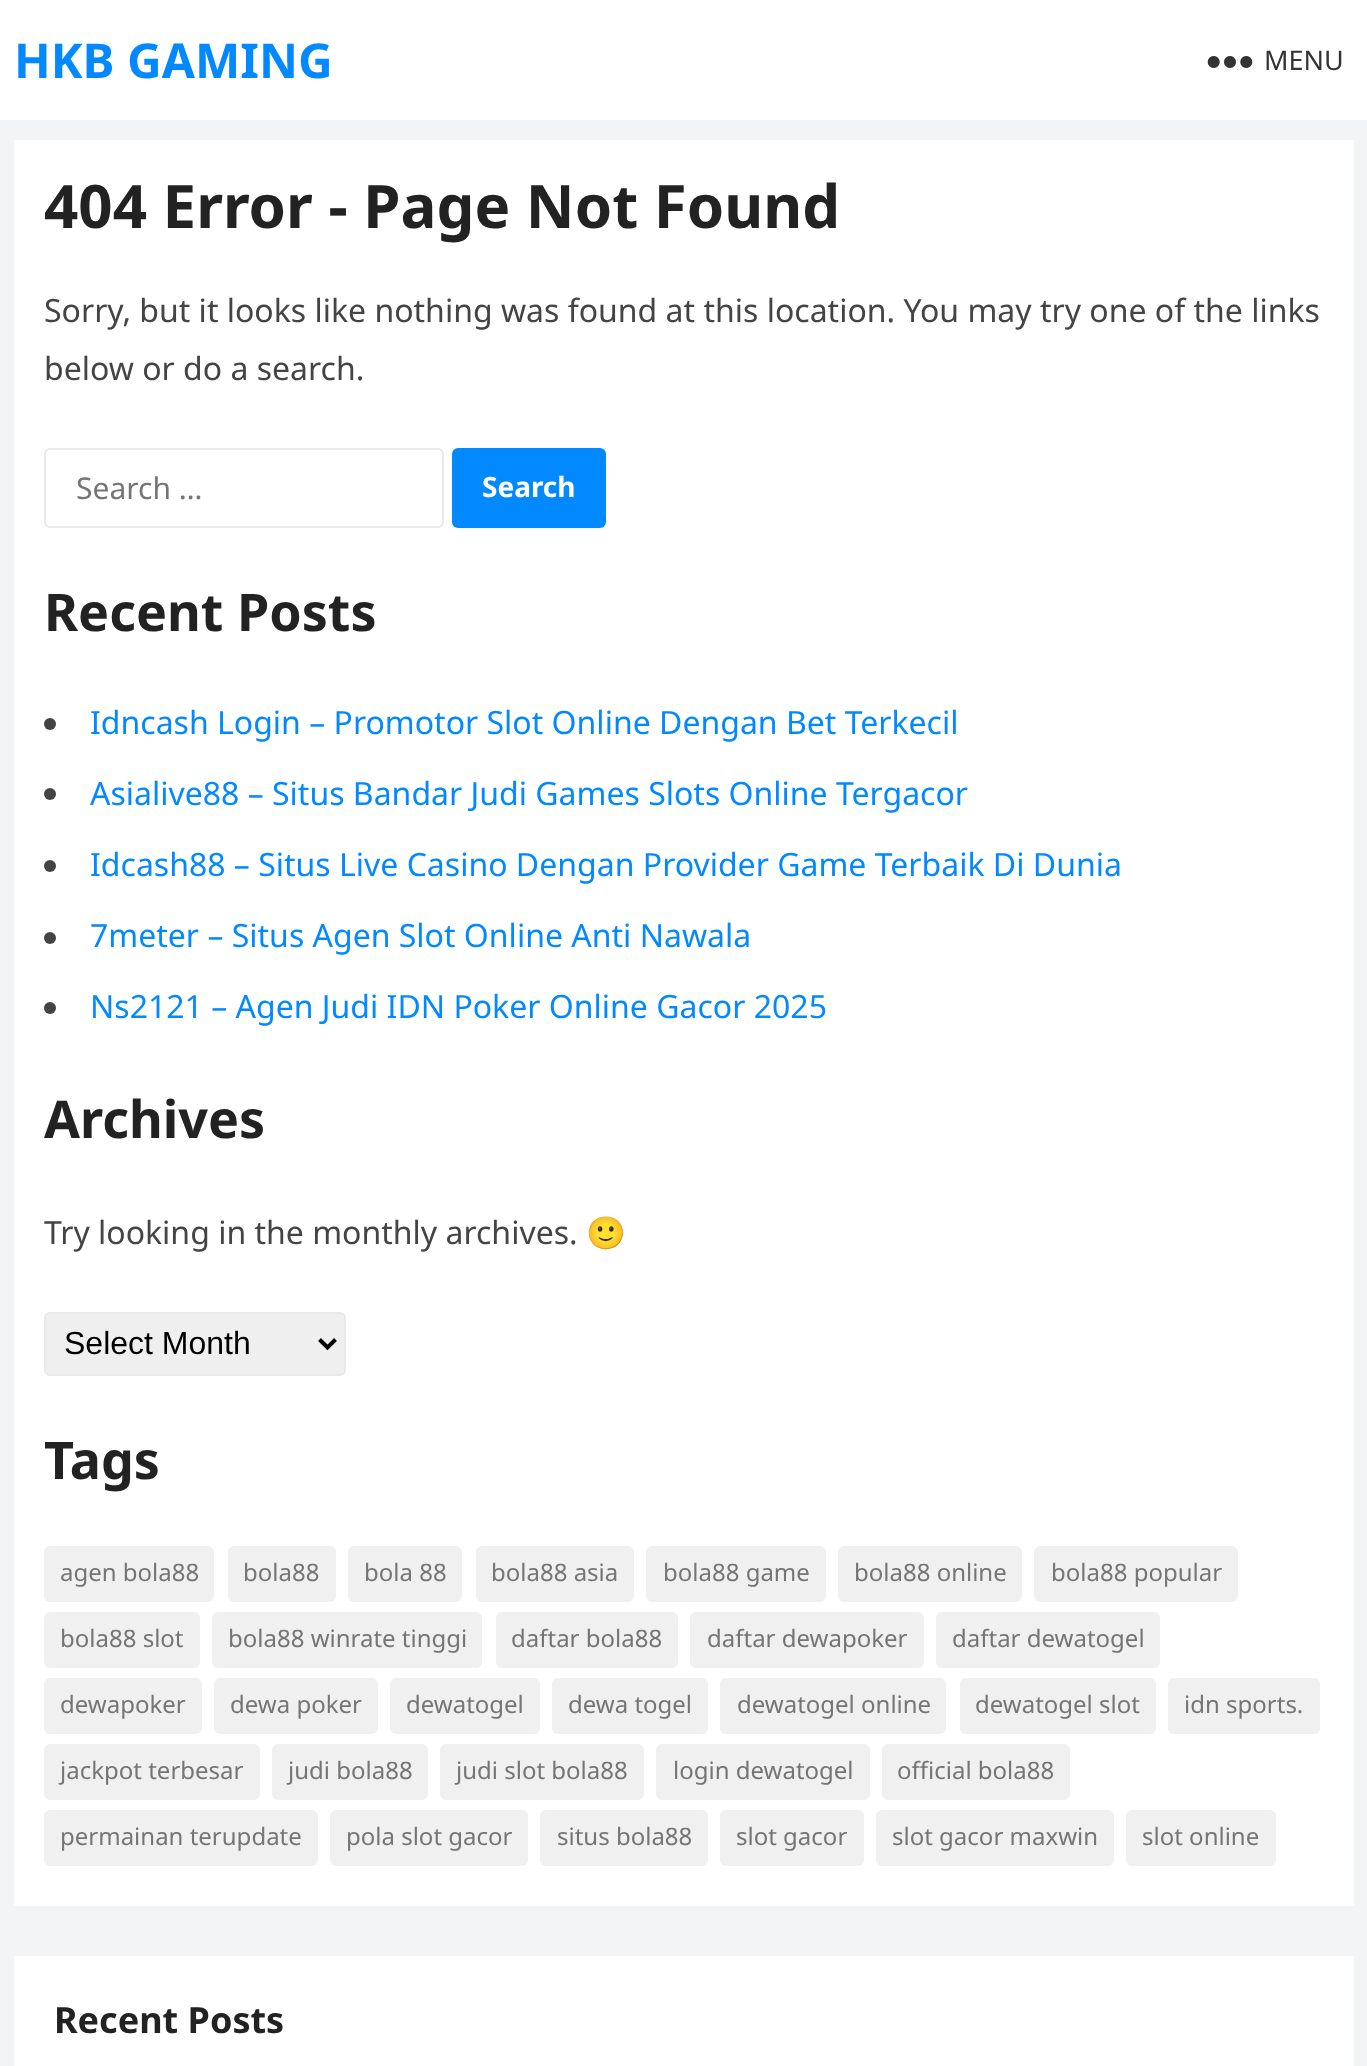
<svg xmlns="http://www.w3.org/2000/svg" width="1367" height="2066">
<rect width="100%" height="100%" fill="#f3f4f5"/>
<rect width="1367" height="120" fill="#fff"/>
<text x="14" y="78" style="font-family:Noto Sans;font-size:48px;font-weight:bold;fill:#0389ff">HKB GAMING</text>
<image x="1207" y="56" width="46" height="12" href="media/1.png"/>
<text x="1264" y="70" style="font-family:Noto Sans;font-size:27px;fill:#333">MENU</text>
<rect x="14" y="140" width="1340" height="1766" fill="#fff"/>
<text x="44" y="228" style="font-family:Noto Sans;font-size:60px;font-weight:bold;fill:#222">404 Error - Page Not Found</text>
<text x="44" y="322" style="font-family:Noto Sans;font-size:32px;fill:#444">Sorry, but it looks like nothing was found at this location. You may try one of the links</text>
<text x="44" y="380" style="font-family:Noto Sans;font-size:32px;fill:#444">below or do a search.</text>
<rect x="45" y="449" width="398" height="78" rx="5" fill="none" stroke="#e9e9e9" stroke-width="2"/>
<text x="76" y="499" style="font-family:Noto Sans;font-size:30px;fill:#757575">Search …</text>
<rect x="452" y="448" width="154" height="80" rx="6" fill="#0389ff"/>
<text x="482" y="497" style="font-family:Noto Sans;font-size:28px;font-weight:bold;fill:#fff">Search</text>
<text x="44" y="631" style="font-family:Noto Sans;font-size:52px;font-weight:bold;fill:#222">Recent Posts</text>
<circle cx="50" cy="724" r="6" fill="#444"/>
<text x="90" y="734" style="font-family:Noto Sans;font-size:32px;fill:#0389ff">Idncash Login – Promotor Slot Online Dengan Bet Terkecil</text>
<circle cx="50" cy="794" r="6" fill="#444"/>
<text x="90" y="805" style="font-family:Noto Sans;font-size:32px;fill:#0389ff">Asialive88 – Situs Bandar Judi Games Slots Online Tergacor</text>
<circle cx="50" cy="866" r="6" fill="#444"/>
<text x="90" y="876" style="font-family:Noto Sans;font-size:32px;fill:#0389ff">Idcash88 – Situs Live Casino Dengan Provider Game Terbaik Di Dunia</text>
<circle cx="50" cy="938" r="6" fill="#444"/>
<text x="90" y="947" style="font-family:Noto Sans;font-size:32px;fill:#0389ff">7meter – Situs Agen Slot Online Anti Nawala</text>
<circle cx="50" cy="1008" r="6" fill="#444"/>
<text x="90" y="1018" style="font-family:Noto Sans;font-size:32px;fill:#0389ff">Ns2121 – Agen Judi IDN Poker Online Gacor 2025</text>
<text x="44" y="1138" style="font-family:Noto Sans;font-size:52px;font-weight:bold;fill:#222">Archives</text>
<text x="44" y="1244" style="font-family:Noto Sans;font-size:32px;fill:#444">Try looking in the monthly archives.</text>
<text x="586" y="1244" style="font-family:Noto Color Emoji;font-size:32px;fill:#444">🙂</text>
<rect x="45" y="1313" width="300" height="62" rx="5" fill="#efefef" stroke="#e9e9e9" stroke-width="2"/>
<path d="M319.5 1339.5l8 8l8-8" fill="none" stroke="#000" stroke-width="4"/>
<text x="64" y="1354" style="font-family:Liberation Sans;font-size:32px;fill:#000">Select Month</text>
<text x="44" y="1479" style="font-family:Noto Sans;font-size:52px;font-weight:bold;fill:#222">Tags</text>
<rect x="44" y="1546" width="170" height="56" rx="6" fill="#f0f0f0"/>
<text x="60" y="1581" style="font-family:Noto Sans;font-size:24px;fill:#757575">agen bola88</text>
<rect x="228" y="1546" width="108" height="56" rx="6" fill="#f0f0f0"/>
<text x="243" y="1581" style="font-family:Noto Sans;font-size:24px;fill:#757575">bola88</text>
<rect x="348" y="1546" width="114" height="56" rx="6" fill="#f0f0f0"/>
<text x="364" y="1581" style="font-family:Noto Sans;font-size:24px;fill:#757575">bola 88</text>
<rect x="476" y="1546" width="158" height="56" rx="6" fill="#f0f0f0"/>
<text x="491" y="1581" style="font-family:Noto Sans;font-size:24px;fill:#757575">bola88 asia</text>
<rect x="646" y="1546" width="180" height="56" rx="6" fill="#f0f0f0"/>
<text x="663" y="1581" style="font-family:Noto Sans;font-size:24px;fill:#757575">bola88 game</text>
<rect x="838" y="1546" width="184" height="56" rx="6" fill="#f0f0f0"/>
<text x="854" y="1581" style="font-family:Noto Sans;font-size:24px;fill:#757575">bola88 online</text>
<rect x="1034" y="1546" width="204" height="56" rx="6" fill="#f0f0f0"/>
<text x="1051" y="1581" style="font-family:Noto Sans;font-size:24px;fill:#757575">bola88 popular</text>
<rect x="44" y="1612" width="156" height="56" rx="6" fill="#f0f0f0"/>
<text x="60" y="1647" style="font-family:Noto Sans;font-size:24px;fill:#757575">bola88 slot</text>
<rect x="212" y="1612" width="270" height="56" rx="6" fill="#f0f0f0"/>
<text x="228" y="1647" style="font-family:Noto Sans;font-size:24px;fill:#757575">bola88 winrate tinggi</text>
<rect x="496" y="1612" width="182" height="56" rx="6" fill="#f0f0f0"/>
<text x="511" y="1647" style="font-family:Noto Sans;font-size:24px;fill:#757575">daftar bola88</text>
<rect x="690" y="1612" width="234" height="56" rx="6" fill="#f0f0f0"/>
<text x="707" y="1647" style="font-family:Noto Sans;font-size:24px;fill:#757575">daftar dewapoker</text>
<rect x="936" y="1612" width="224" height="56" rx="6" fill="#f0f0f0"/>
<text x="952" y="1647" style="font-family:Noto Sans;font-size:24px;fill:#757575">daftar dewatogel</text>
<rect x="44" y="1678" width="158" height="56" rx="6" fill="#f0f0f0"/>
<text x="60" y="1713" style="font-family:Noto Sans;font-size:24px;fill:#757575">dewapoker</text>
<rect x="214" y="1678" width="164" height="56" rx="6" fill="#f0f0f0"/>
<text x="230" y="1713" style="font-family:Noto Sans;font-size:24px;fill:#757575">dewa poker</text>
<rect x="390" y="1678" width="150" height="56" rx="6" fill="#f0f0f0"/>
<text x="406" y="1713" style="font-family:Noto Sans;font-size:24px;fill:#757575">dewatogel</text>
<rect x="552" y="1678" width="156" height="56" rx="6" fill="#f0f0f0"/>
<text x="568" y="1713" style="font-family:Noto Sans;font-size:24px;fill:#757575">dewa togel</text>
<rect x="720" y="1678" width="226" height="56" rx="6" fill="#f0f0f0"/>
<text x="737" y="1713" style="font-family:Noto Sans;font-size:24px;fill:#757575">dewatogel online</text>
<rect x="960" y="1678" width="196" height="56" rx="6" fill="#f0f0f0"/>
<text x="975" y="1713" style="font-family:Noto Sans;font-size:24px;fill:#757575">dewatogel slot</text>
<rect x="1168" y="1678" width="152" height="56" rx="6" fill="#f0f0f0"/>
<text x="1184" y="1713" style="font-family:Noto Sans;font-size:24px;fill:#757575">idn sports.</text>
<rect x="44" y="1744" width="216" height="56" rx="6" fill="#f0f0f0"/>
<text x="60" y="1779" style="font-family:Noto Sans;font-size:24px;fill:#757575">jackpot terbesar</text>
<rect x="272" y="1744" width="156" height="56" rx="6" fill="#f0f0f0"/>
<text x="288" y="1779" style="font-family:Noto Sans;font-size:24px;fill:#757575">judi bola88</text>
<rect x="440" y="1744" width="204" height="56" rx="6" fill="#f0f0f0"/>
<text x="456" y="1779" style="font-family:Noto Sans;font-size:24px;fill:#757575">judi slot bola88</text>
<rect x="656" y="1744" width="214" height="56" rx="6" fill="#f0f0f0"/>
<text x="673" y="1779" style="font-family:Noto Sans;font-size:24px;fill:#757575">login dewatogel</text>
<rect x="882" y="1744" width="188" height="56" rx="6" fill="#f0f0f0"/>
<text x="897" y="1779" style="font-family:Noto Sans;font-size:24px;fill:#757575">official bola88</text>
<rect x="44" y="1810" width="274" height="56" rx="6" fill="#f0f0f0"/>
<text x="60" y="1845" style="font-family:Noto Sans;font-size:24px;fill:#757575">permainan terupdate</text>
<rect x="330" y="1810" width="198" height="56" rx="6" fill="#f0f0f0"/>
<text x="346" y="1845" style="font-family:Noto Sans;font-size:24px;fill:#757575">pola slot gacor</text>
<rect x="540" y="1810" width="168" height="56" rx="6" fill="#f0f0f0"/>
<text x="557" y="1845" style="font-family:Noto Sans;font-size:24px;fill:#757575">situs bola88</text>
<rect x="720" y="1810" width="144" height="56" rx="6" fill="#f0f0f0"/>
<text x="736" y="1845" style="font-family:Noto Sans;font-size:24px;fill:#757575">slot gacor</text>
<rect x="876" y="1810" width="238" height="56" rx="6" fill="#f0f0f0"/>
<text x="892" y="1845" style="font-family:Noto Sans;font-size:24px;fill:#757575">slot gacor maxwin</text>
<rect x="1126" y="1810" width="150" height="56" rx="6" fill="#f0f0f0"/>
<text x="1142" y="1845" style="font-family:Noto Sans;font-size:24px;fill:#757575">slot online</text>
<rect x="14" y="1956" width="1340" height="110" fill="#fff"/>
<text x="54" y="2033" style="font-family:Noto Sans;font-size:36px;font-weight:bold;fill:#222">Recent Posts</text>
</svg>
